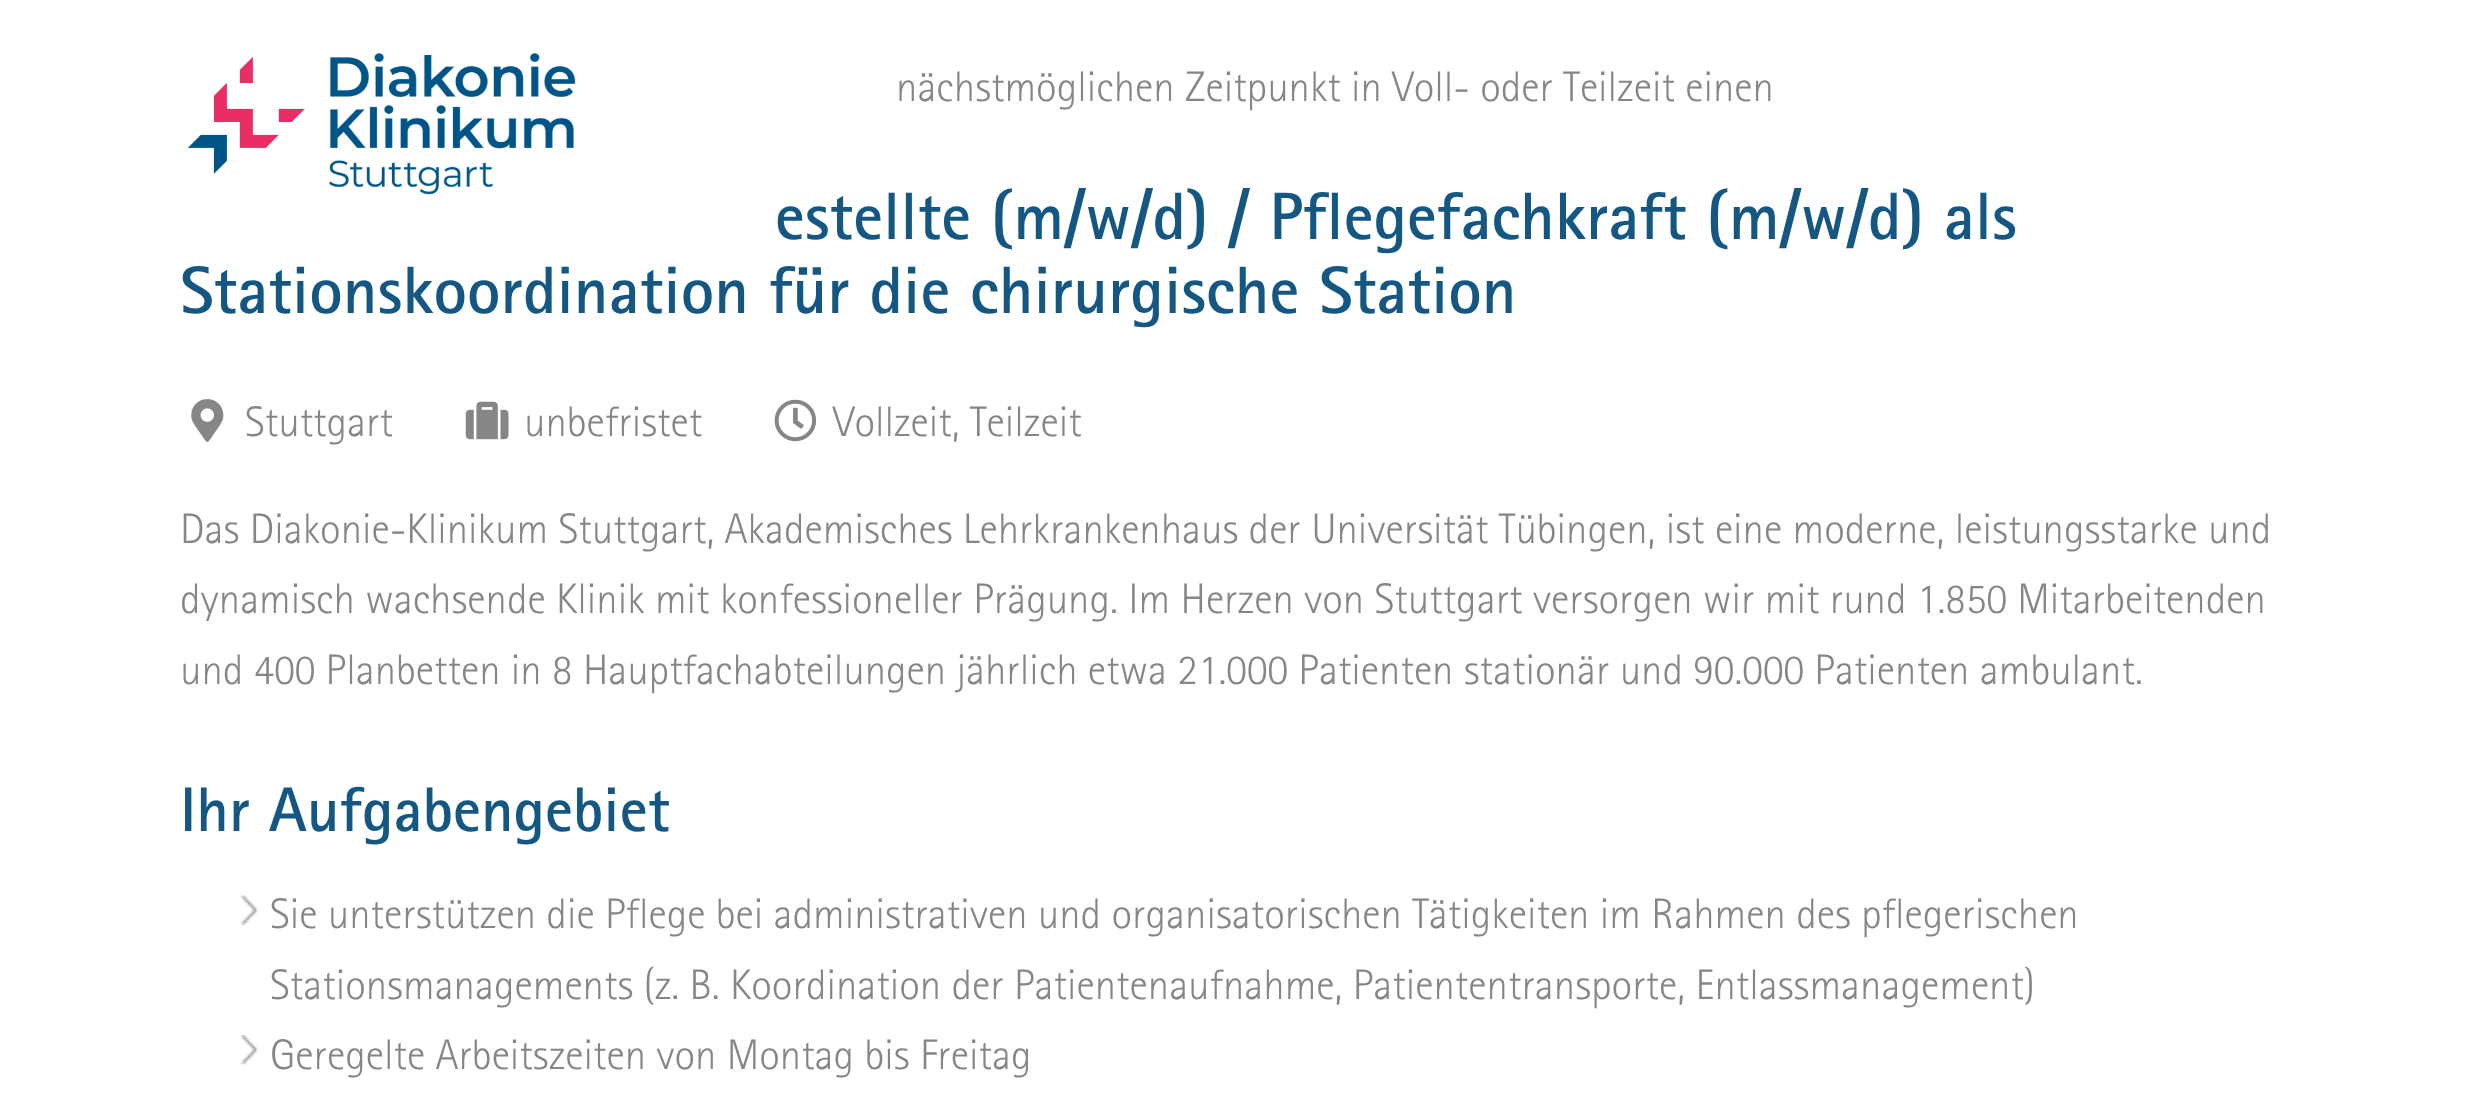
<svg xmlns="http://www.w3.org/2000/svg" width="2474" height="1108">
<rect width="100%" height="100%" fill="#fff"/>
<image x="187" y="53" width="389" height="142" href="media/1.png"/>
<text x="896" y="101" style="font-family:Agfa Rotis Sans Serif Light;font-size:42.75px;font-weight:300;fill:#868686">nächstmöglichen Zeitpunkt in Voll- oder Teilzeit einen</text>
<text x="775" y="239" style="font-family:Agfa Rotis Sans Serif;font-size:67.1px;font-weight:bold;fill:#145782">estellte (m/w/d) / Pflegefachkraft (m/w/d) als</text>
<text x="180" y="313" style="font-family:Agfa Rotis Sans Serif;font-size:67.1px;font-weight:bold;fill:#145782">Stationskoordination für die chirurgische Station</text>
<image x="191" y="399" width="33" height="43" href="media/2.png"/>
<text x="245" y="436" style="font-family:Agfa Rotis Sans Serif Light;font-size:42.75px;font-weight:300;fill:#868686">Stuttgart</text>
<image x="465" y="401" width="44" height="39" href="media/3.png"/>
<text x="524" y="436" style="font-family:Agfa Rotis Sans Serif Light;font-size:42.75px;font-weight:300;fill:#868686">unbefristet</text>
<image x="774" y="399" width="43" height="43" href="media/4.png"/>
<text x="833" y="436" style="font-family:Agfa Rotis Sans Serif Light;font-size:42.75px;font-weight:300;fill:#868686">Vollzeit, Teilzeit</text>
<text x="180" y="543" style="font-family:Agfa Rotis Sans Serif Light;font-size:42.75px;font-weight:300;fill:#868686">Das Diakonie-Klinikum Stuttgart, Akademisches Lehrkrankenhaus der Universität Tübingen, ist eine moderne, leistungsstarke und</text>
<text x="180" y="613" style="font-family:Agfa Rotis Sans Serif Light;font-size:42.75px;font-weight:300;fill:#868686">dynamisch wachsende Klinik mit konfessioneller Prägung. Im Herzen von Stuttgart versorgen wir mit rund 1.850 Mitarbeitenden</text>
<text x="180" y="684" style="font-family:Agfa Rotis Sans Serif Light;font-size:42.75px;font-weight:300;fill:#868686">und 400 Planbetten in 8 Hauptfachabteilungen jährlich etwa 21.000 Patienten stationär und 90.000 Patienten ambulant.</text>
<text x="180" y="831" style="font-family:Agfa Rotis Sans Serif;font-size:63px;font-weight:bold;fill:#145782">Ihr Aufgabengebiet</text>
<image x="240" y="895" width="17" height="30" href="media/5.png"/>
<text x="270" y="928" style="font-family:Agfa Rotis Sans Serif Light;font-size:42.75px;font-weight:300;fill:#868686">Sie unterstützen die Pflege bei administrativen und organisatorischen Tätigkeiten im Rahmen des pflegerischen</text>
<text x="270" y="999" style="font-family:Agfa Rotis Sans Serif Light;font-size:42.75px;font-weight:300;fill:#868686">Stationsmanagements (z. B. Koordination der Patientenaufnahme, Patiententransporte, Entlassmanagement)</text>
<image x="240" y="1035" width="17" height="30" href="media/6.png"/>
<text x="270" y="1069" style="font-family:Agfa Rotis Sans Serif Light;font-size:42.75px;font-weight:300;fill:#868686">Geregelte Arbeitszeiten von Montag bis Freitag</text>
</svg>
